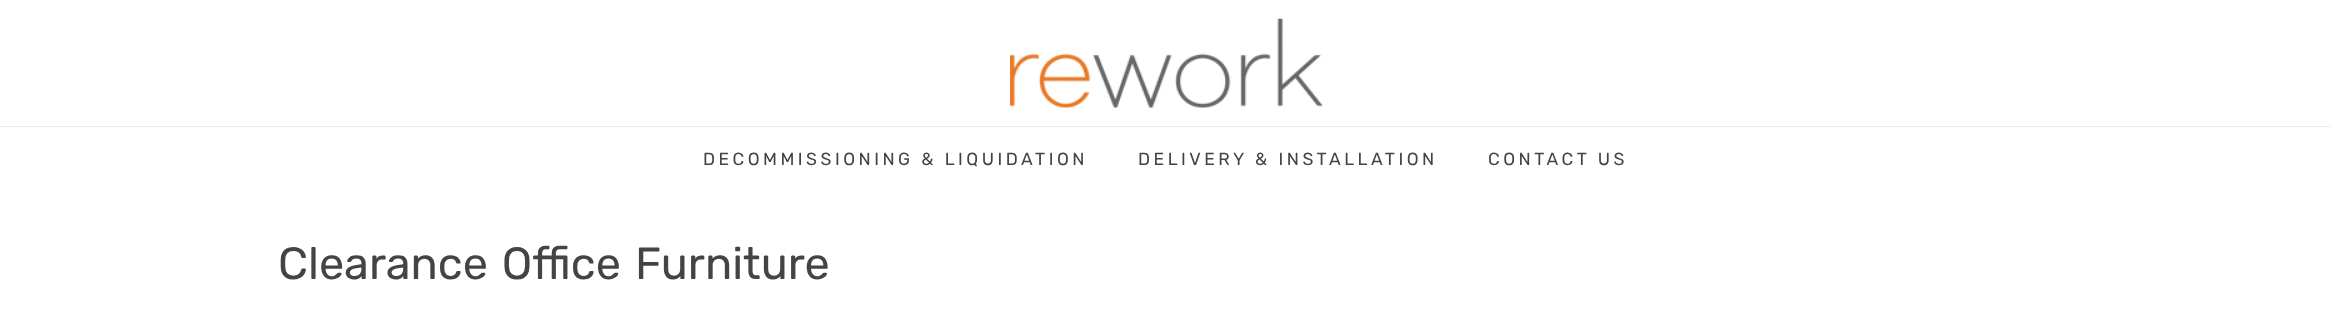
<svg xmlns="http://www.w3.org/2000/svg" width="2331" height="310">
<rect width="100%" height="100%" fill="#fff"/>
<image x="1010" y="18" width="313" height="90" href="media/1.png"/>
<rect y="126" width="2331" height="1" fill="#ececec"/>
<text x="703" y="165" style="font-family:Rubik;font-size:17.5px;letter-spacing:3.5px;fill:#444">DECOMMISSIONING &amp; LIQUIDATION</text>
<text x="1138" y="165" style="font-family:Rubik;font-size:17.5px;letter-spacing:3.5px;fill:#444">DELIVERY &amp; INSTALLATION</text>
<text x="1488" y="165" style="font-family:Rubik;font-size:17.5px;letter-spacing:3.5px;fill:#444">CONTACT US</text>
<text x="278" y="279" word-spacing="3" style="font-family:Rubik;font-size:45px;fill:#444">Clearance Office Furniture</text>
</svg>
